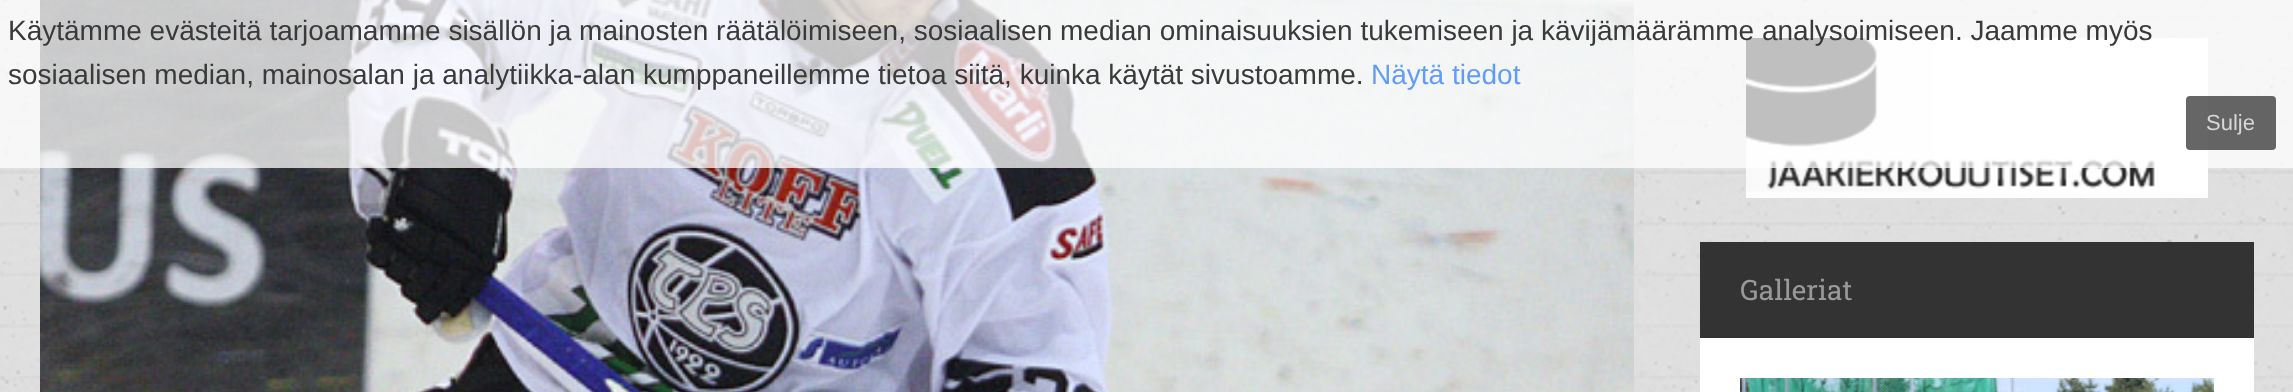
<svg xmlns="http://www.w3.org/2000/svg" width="2293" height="392">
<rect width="100%" height="100%" fill="#fff"/>
<image x="0" y="0" width="2293" height="392" href="media/1.png"/>
<image x="40" y="0" width="1594" height="392" href="media/2.png"/>
<image x="1746" y="38" width="462" height="160" href="media/3.png"/>
<rect width="2293" height="168" fill="#ffffffbf"/>
<text x="8" y="40" style="font-family:Liberation Sans;font-size:28px;fill:#3a3a3a">Käytämme evästeitä tarjoamamme sisällön ja mainosten räätälöimiseen, sosiaalisen median ominaisuuksien tukemiseen ja kävijämäärämme analysoimiseen. Jaamme myös</text>
<text x="8" y="84" style="font-family:Liberation Sans;font-size:28px;fill:#3a3a3a">sosiaalisen median, mainosalan ja analytiikka-alan kumppaneillemme tietoa siitä, kuinka käytät sivustoamme.</text>
<text x="1371" y="84" style="font-family:Liberation Sans;font-size:28px;fill:#629cfb">Näytä tiedot</text>
<rect x="2186" y="96" width="90" height="54" rx="4" fill="#333333bf"/>
<text x="2206" y="130" style="font-family:Liberation Sans;font-size:22px;fill:#d8d8d8">Sulje</text>
<rect x="1700" y="338" width="554" height="54" fill="#fff"/>
<rect x="1700" y="242" width="554" height="96" fill="#333"/>
<text x="1740" y="300" style="font-family:Roboto Slab;font-size:28px;fill:#999">Galleriat</text>
<image x="1740" y="378" width="474" height="14" href="media/4.png"/>
</svg>
